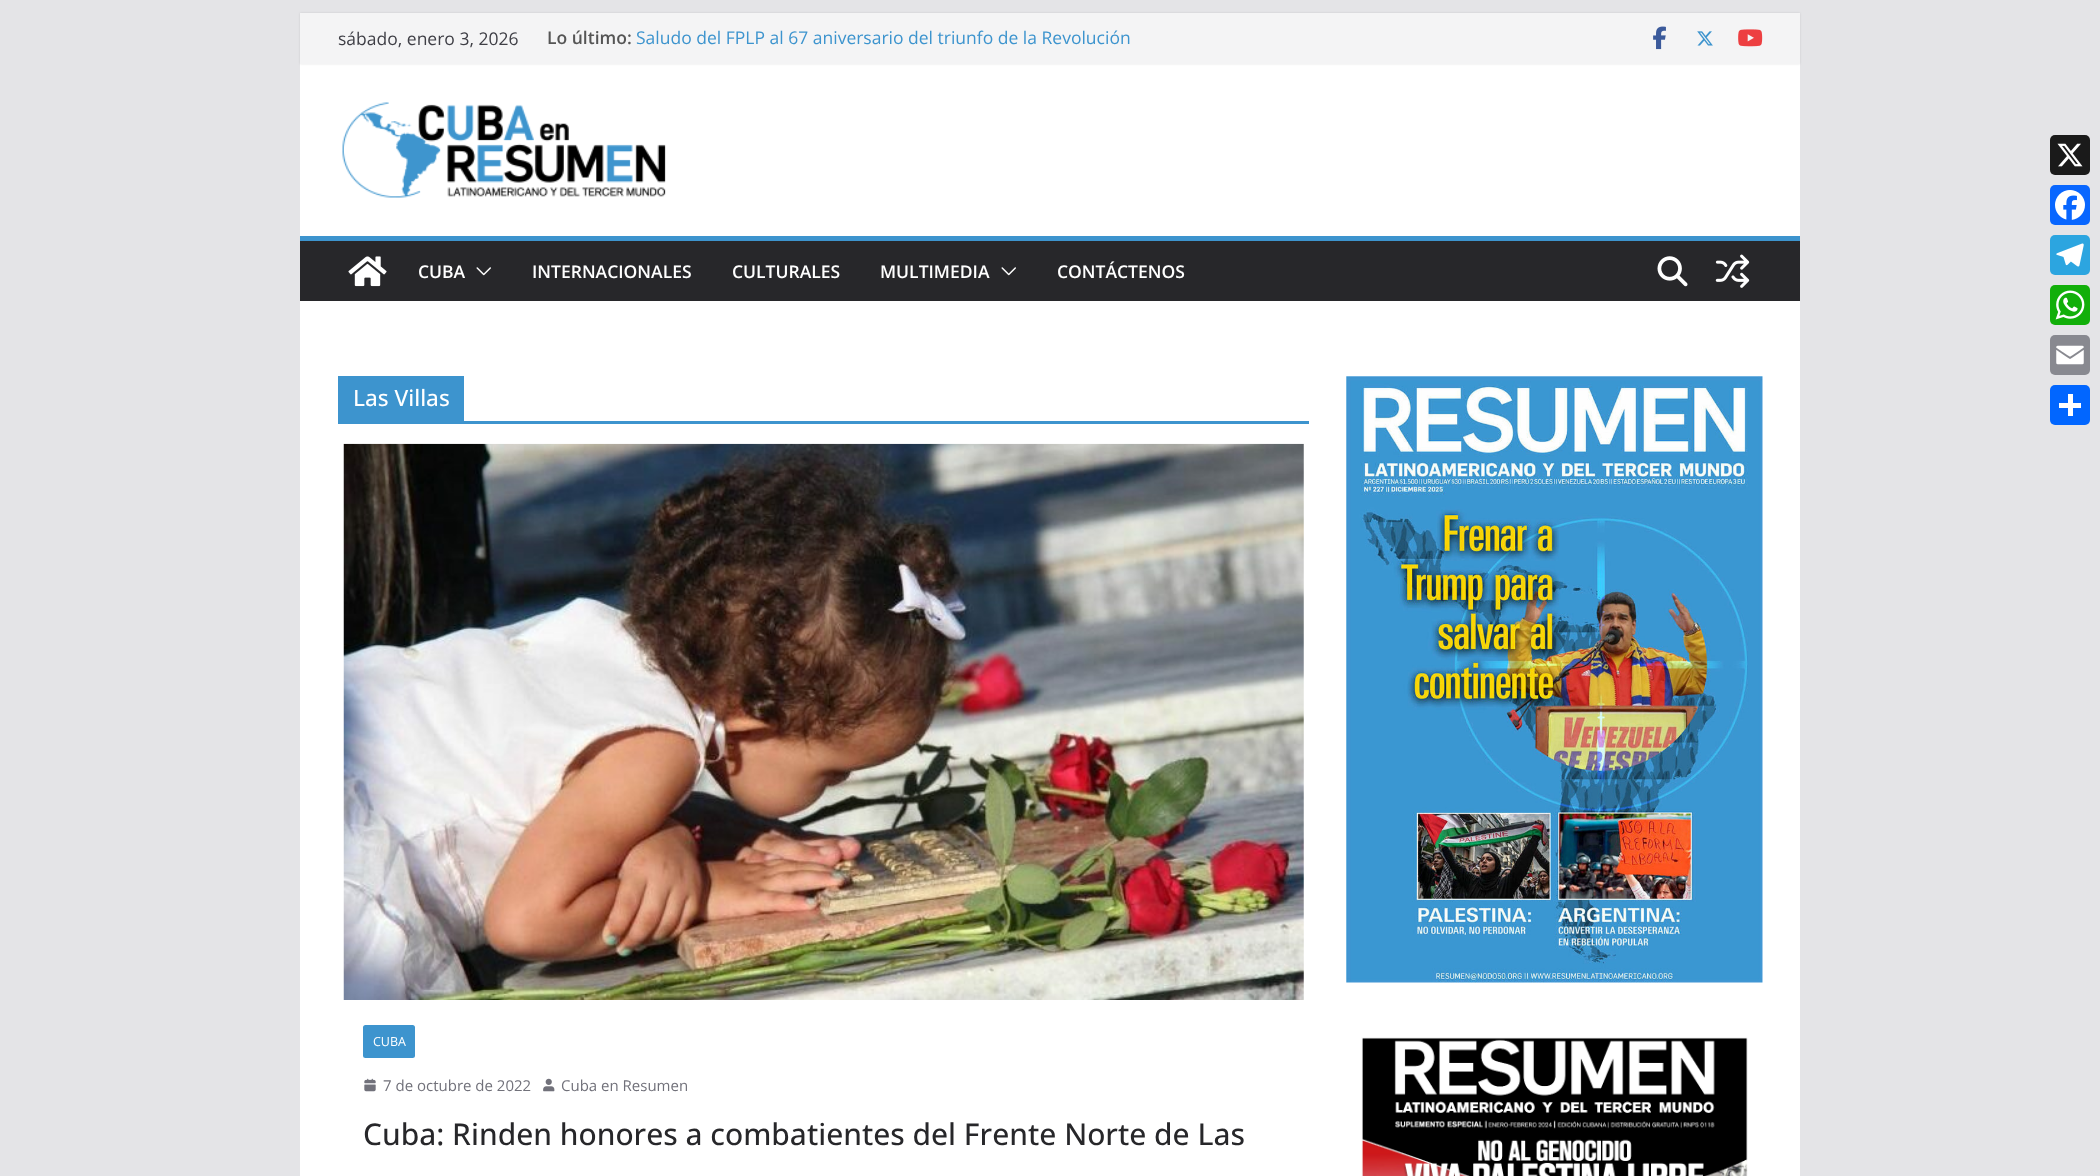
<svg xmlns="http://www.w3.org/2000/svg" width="2100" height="1176">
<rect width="100%" height="100%" fill="#e4e4e7"/>
<rect x="300" y="64" width="1500" height="172" fill="#fff"/>
<rect x="300" y="13" width="1500" height="51" fill="#0000001a" filter="blur(1px)"/>
<rect x="300" y="13" width="1500" height="51" fill="#f4f4f5"/>
<text x="338" y="45" style="font-family:Open Sans;font-size:17.5px;fill:#3f3f46">sábado, enero 3, 2026</text>
<text x="547" y="44" style="font-family:Open Sans;font-size:17.5px;font-weight:600;fill:#555">Lo último:</text>
<text x="636" y="44" style="font-family:Open Sans;font-size:17.5px;fill:#3d94ce">Saludo del FPLP al 67 aniversario del triunfo de la Revolución</text>
<image x="1653" y="26" width="13" height="24" href="media/1.png"/>
<image x="1697" y="31" width="16" height="15" href="media/2.png"/>
<image x="1738" y="29" width="25" height="18" href="media/3.png"/>
<image x="342" y="102" width="324" height="96" href="media/4.png"/>
<rect x="300" y="241" width="1500" height="60" fill="#27272a"/>
<rect x="300" y="236" width="1500" height="5" fill="#3d94ce"/>
<image x="348" y="256" width="39" height="31" href="media/5.png"/>
<text x="418" y="278" style="font-family:Open Sans;font-size:17.5px;font-weight:600;fill:#fff">CUBA</text>
<image x="476" y="267" width="15" height="9" href="media/6.png"/>
<text x="532" y="278" style="font-family:Open Sans;font-size:17.5px;font-weight:600;fill:#fff">INTERNACIONALES</text>
<text x="732" y="278" style="font-family:Open Sans;font-size:17.5px;font-weight:600;fill:#fff">CULTURALES</text>
<text x="880" y="278" style="font-family:Open Sans;font-size:17.5px;font-weight:600;fill:#fff">MULTIMEDIA</text>
<image x="1001" y="267" width="15" height="9" href="media/6.png"/>
<text x="1057" y="278" style="font-family:Open Sans;font-size:17.5px;font-weight:600;fill:#fff">CONTÁCTENOS</text>
<image x="1657" y="256" width="31" height="31" href="media/7.png"/>
<image x="1715" y="254" width="35" height="34" href="media/8.png"/>
<rect x="300" y="301" width="1500" height="875" fill="#fff"/>
<rect x="338" y="421" width="971" height="3" fill="#3d94ce"/>
<rect x="338" y="376" width="126" height="45" fill="#3d94ce"/>
<text x="353" y="406" style="font-family:Open Sans;font-size:22.5px;font-weight:500;fill:#fff">Las Villas</text>
<image x="343" y="443" width="961" height="557" href="media/9.png"/>
<rect x="363" y="1025" width="52" height="33" rx="2.5" fill="#3d94ce"/>
<text x="373" y="1046" style="font-family:Open Sans;font-size:12.5px;fill:#fff">CUBA</text>
<image x="364" y="1078" width="12" height="14" href="media/10.png"/>
<text x="383" y="1091" style="font-family:Open Sans;font-size:15px;fill:#71717a">7 de octubre de 2022</text>
<image x="543" y="1078" width="12" height="14" href="media/11.png"/>
<text x="561" y="1091" style="font-family:Open Sans;font-size:15px;fill:#71717a">Cuba en Resumen</text>
<text x="363" y="1145" style="font-family:Open Sans;font-size:30px;font-weight:500;fill:#27272a">Cuba: Rinden honores a combatientes del Frente Norte de Las</text>
<image x="1346" y="376" width="417" height="607" href="media/12.png"/>
<image x="1361" y="1037" width="387" height="139" href="media/13.png"/>
<rect x="2050" y="135" width="40" height="40" rx="5" fill="#1a1a1a"/>
<image x="2057" y="143" width="26" height="24" href="media/14.png"/>
<rect x="2050" y="185" width="40" height="40" rx="5" fill="#0866ff"/>
<image x="2055" y="190" width="30" height="30" href="media/15.png"/>
<rect x="2050" y="235" width="40" height="40" rx="5" fill="#2ca5e0"/>
<image x="2056" y="243" width="28" height="24" href="media/16.png"/>
<rect x="2050" y="285" width="40" height="40" rx="5" fill="#12af0a"/>
<image x="2055" y="290" width="30" height="30" href="media/17.png"/>
<rect x="2050" y="335" width="40" height="40" rx="5" fill="#888990"/>
<image x="2056" y="345" width="28" height="20" href="media/18.png"/>
<rect x="2050" y="385" width="40" height="40" rx="5" fill="#0166ff"/>
<rect x="2068" y="394" width="5" height="22" fill="#fff"/>
<rect x="2059" y="403" width="22" height="5" fill="#fff"/>
</svg>
